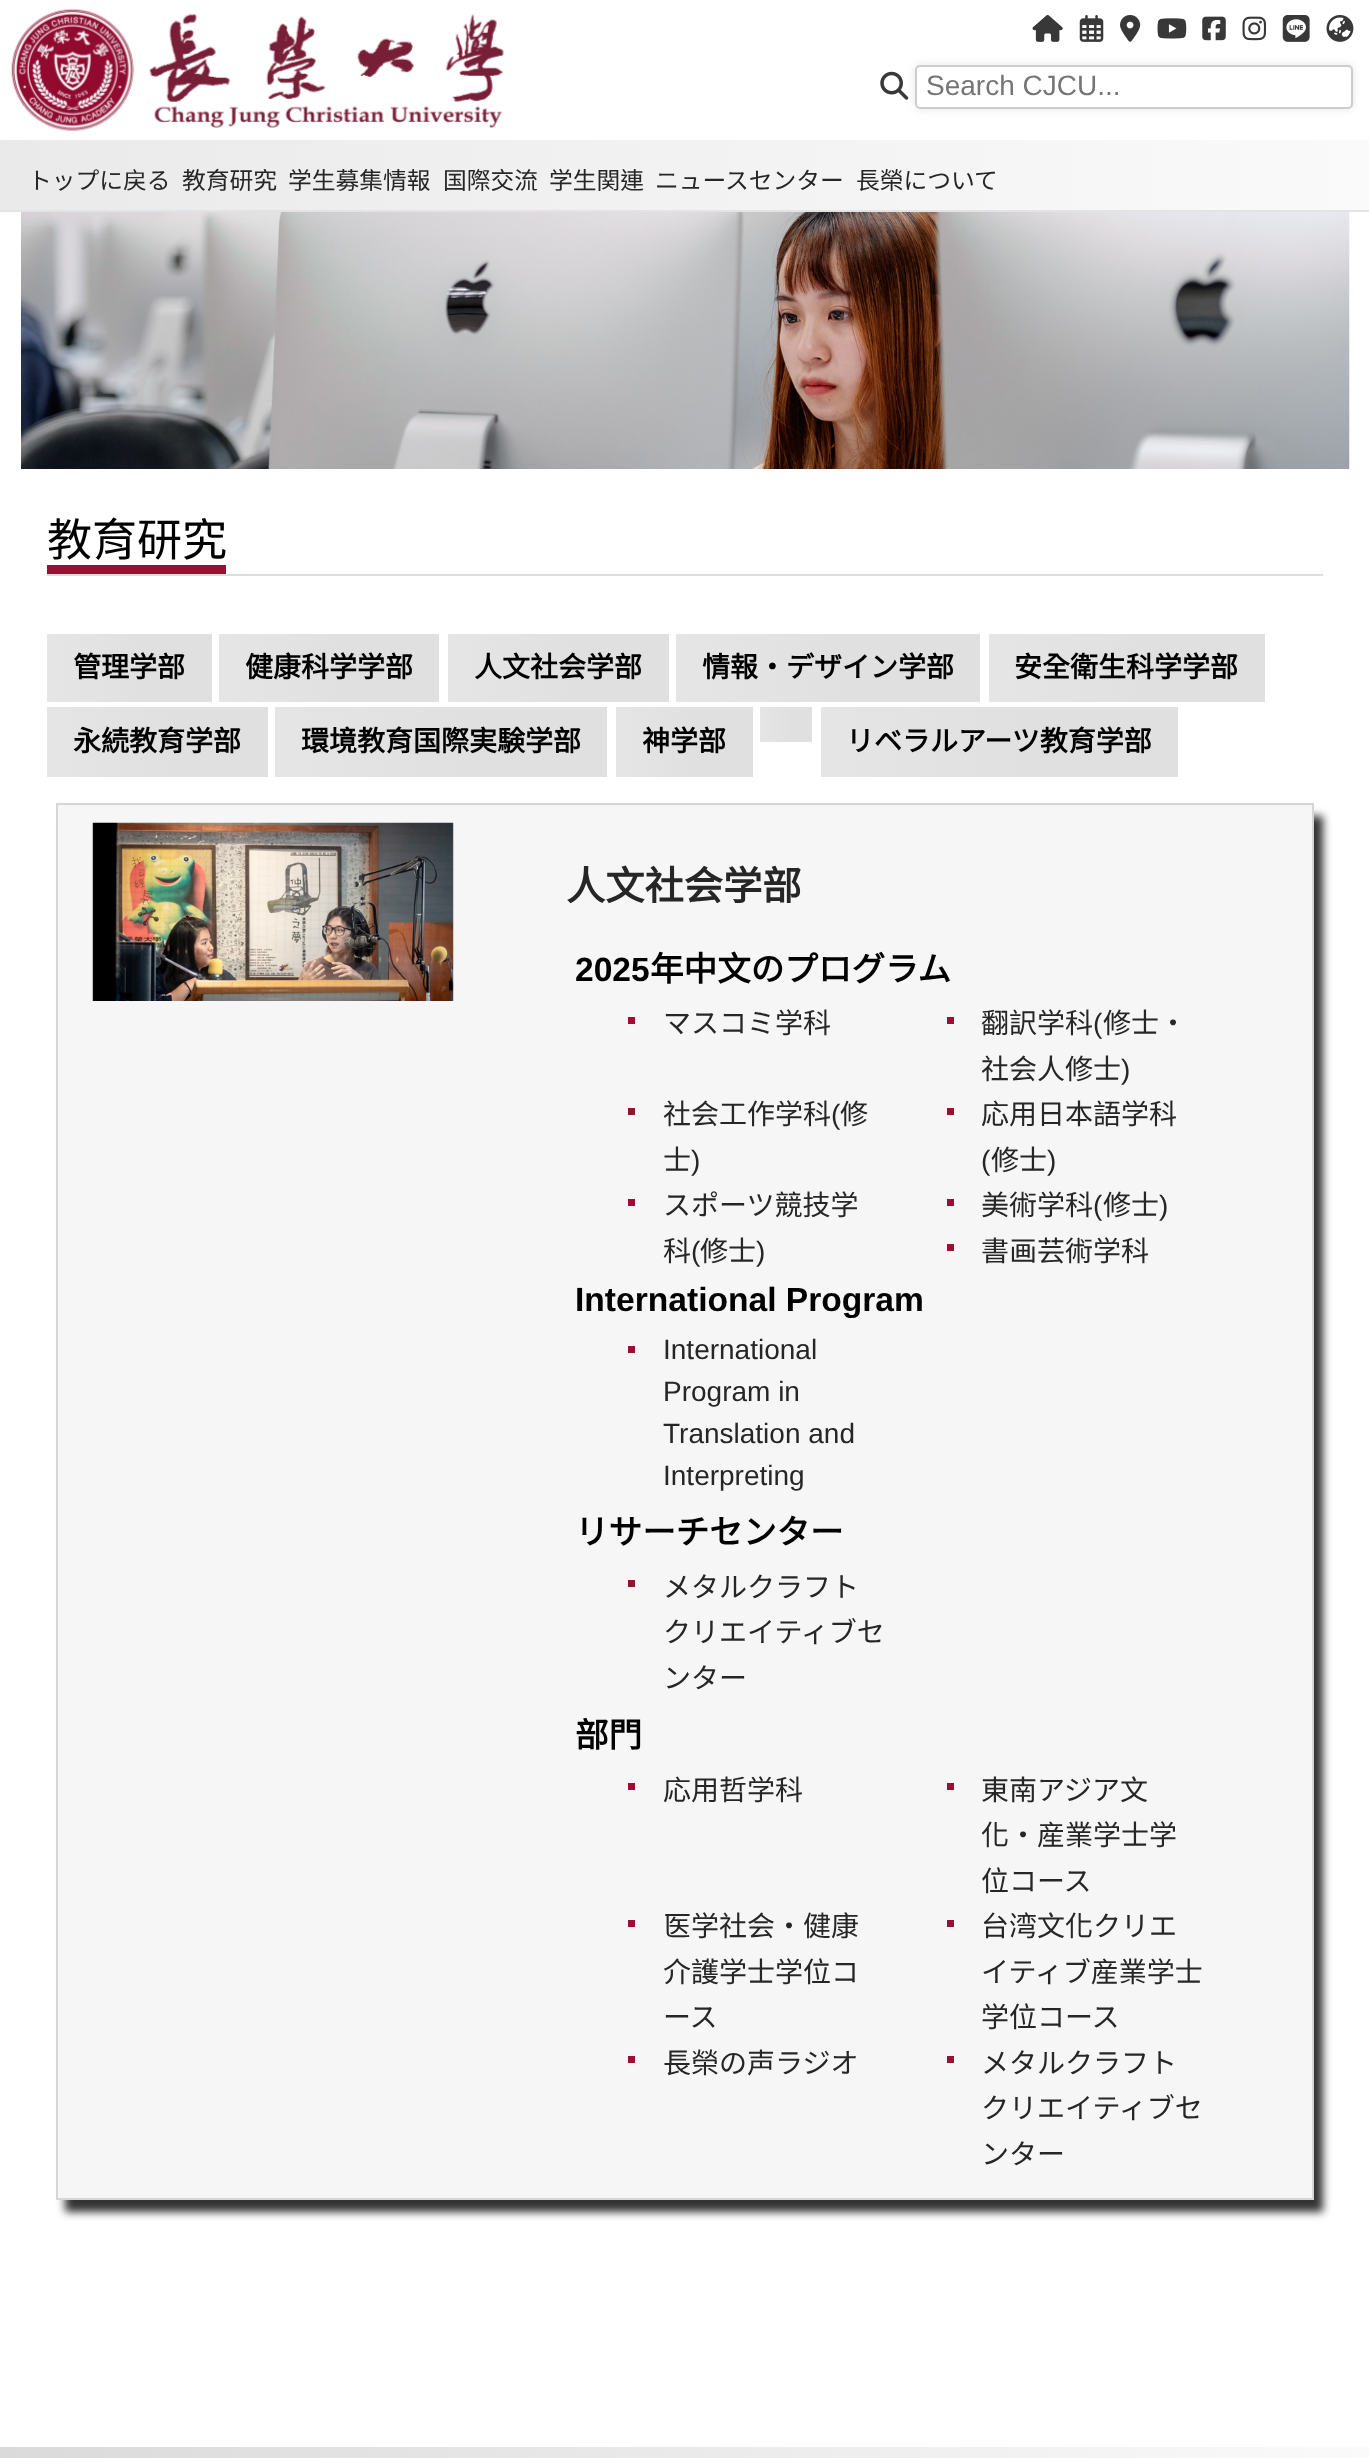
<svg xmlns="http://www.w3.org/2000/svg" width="1369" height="2458">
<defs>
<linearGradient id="g1" gradientUnits="userSpaceOnUse" x1="0" y1="175" x2="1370" y2="175"><stop offset="0" stop-color="#eaeaea"/><stop offset="1" stop-color="#fafafa"/></linearGradient>
<linearGradient id="g2" gradientUnits="userSpaceOnUse" x1="47" y1="668" x2="212" y2="668"><stop offset="0.05" stop-color="#e5e5e5"/><stop offset="0.6" stop-color="#e0e0e0"/></linearGradient>
<linearGradient id="g3" gradientUnits="userSpaceOnUse" x1="219" y1="668" x2="439" y2="668"><stop offset="0.05" stop-color="#e5e5e5"/><stop offset="0.6" stop-color="#e0e0e0"/></linearGradient>
<linearGradient id="g4" gradientUnits="userSpaceOnUse" x1="448" y1="668" x2="669" y2="668"><stop offset="0.05" stop-color="#e5e5e5"/><stop offset="0.6" stop-color="#e0e0e0"/></linearGradient>
<linearGradient id="g5" gradientUnits="userSpaceOnUse" x1="676" y1="668" x2="980" y2="668"><stop offset="0.05" stop-color="#e5e5e5"/><stop offset="0.6" stop-color="#e0e0e0"/></linearGradient>
<linearGradient id="g6" gradientUnits="userSpaceOnUse" x1="989" y1="668" x2="1265" y2="668"><stop offset="0.05" stop-color="#e5e5e5"/><stop offset="0.6" stop-color="#e0e0e0"/></linearGradient>
<linearGradient id="g7" gradientUnits="userSpaceOnUse" x1="47" y1="742" x2="268" y2="742"><stop offset="0.05" stop-color="#e5e5e5"/><stop offset="0.6" stop-color="#e0e0e0"/></linearGradient>
<linearGradient id="g8" gradientUnits="userSpaceOnUse" x1="275" y1="742" x2="607" y2="742"><stop offset="0.05" stop-color="#e5e5e5"/><stop offset="0.6" stop-color="#e0e0e0"/></linearGradient>
<linearGradient id="g9" gradientUnits="userSpaceOnUse" x1="616" y1="742" x2="753" y2="742"><stop offset="0.05" stop-color="#e5e5e5"/><stop offset="0.6" stop-color="#e0e0e0"/></linearGradient>
<linearGradient id="g10" gradientUnits="userSpaceOnUse" x1="760" y1="725" x2="812" y2="725"><stop offset="0.05" stop-color="#e5e5e5"/><stop offset="0.6" stop-color="#e0e0e0"/></linearGradient>
<linearGradient id="g11" gradientUnits="userSpaceOnUse" x1="821" y1="742" x2="1178" y2="742"><stop offset="0.05" stop-color="#e5e5e5"/><stop offset="0.6" stop-color="#e0e0e0"/></linearGradient>
<clipPath id="clip1"><path d="M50 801h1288v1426h-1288zm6 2h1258v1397h-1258z" clip-rule="evenodd"/></clipPath>
<linearGradient id="g12" gradientUnits="userSpaceOnUse" x1="0" y1="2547" x2="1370" y2="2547"><stop offset="0" stop-color="#dadada"/><stop offset="1" stop-color="#fafafa"/></linearGradient>
</defs>
<rect width="100%" height="100%" fill="#fff"/>
<image x="11" y="8" width="123" height="123" href="media/1.png"/>
<image x="149" y="13" width="355" height="115" href="media/2.png"/>
<image x="1032" y="15" width="31" height="27" href="media/3.png"/>
<image x="1079" y="15" width="25" height="27" href="media/4.png"/>
<image x="1120" y="15" width="21" height="27" href="media/5.png"/>
<image x="1157" y="18" width="30" height="21" href="media/6.png"/>
<image x="1202" y="16" width="24" height="25" href="media/7.png"/>
<image x="1242" y="16" width="24" height="25" href="media/8.png"/>
<image x="1282" y="15" width="28" height="27" href="media/9.png"/>
<image x="1326" y="15" width="28" height="27" href="media/10.png"/>
<image x="880" y="71" width="29" height="29" href="media/11.png"/>
<rect x="915" y="65" width="438" height="44" rx="5" fill="#0000001a" filter="blur(4.5px)"/>
<rect x="916" y="66" width="436" height="42" rx="4" fill="#fff" stroke="#ccc" stroke-width="2"/>
<text x="926" y="95" style="font-family:Liberation Sans;font-size:28px;fill:#757575">Search CJCU...</text>
<rect y="140" width="1369" height="70" fill="url(#g1)"/>
<rect y="210" width="1369" height="2" fill="#e3e3e3"/>
<text x="28" y="189" style="font-family:Noto Sans CJK TC;font-size:23.75px;fill:#262626">トップに戻る</text>
<text x="182" y="189" style="font-family:Noto Sans CJK TC;font-size:23.75px;fill:#262626">教育研究</text>
<text x="288" y="189" style="font-family:Noto Sans CJK TC;font-size:23.75px;fill:#262626">学生募集情報</text>
<text x="443" y="189" style="font-family:Noto Sans CJK TC;font-size:23.75px;fill:#262626">国際交流</text>
<text x="549" y="189" style="font-family:Noto Sans CJK TC;font-size:23.75px;fill:#262626">学生関連</text>
<text x="655" y="189" style="font-family:Noto Sans CJK TC;font-size:23.75px;fill:#262626">ニュースセンター</text>
<text x="856" y="189" style="font-family:Noto Sans CJK TC;font-size:23.75px;fill:#262626">長榮について</text>
<image x="21" y="212" width="1329" height="257" href="media/12.png"/>
<rect x="47" y="574" width="1276" height="2" fill="#ddd"/>
<text x="47" y="556" style="font-family:Noto Sans CJK TC;font-size:45px;fill:#000">教育研究</text>
<rect x="47" y="565" width="179" height="9" fill="#9d0e35"/>
<rect x="47" y="634" width="165" height="68" fill="url(#g2)"/>
<text x="73" y="677" style="font-family:Noto Sans CJK TC;font-size:28px;font-weight:bold;fill:#000">管理学部</text>
<rect x="219" y="634" width="220" height="68" fill="url(#g3)"/>
<text x="245" y="677" style="font-family:Noto Sans CJK TC;font-size:28px;font-weight:bold;fill:#000">健康科学学部</text>
<rect x="448" y="634" width="221" height="68" fill="url(#g4)"/>
<text x="474" y="677" style="font-family:Noto Sans CJK TC;font-size:28px;font-weight:bold;fill:#000">人文社会学部</text>
<rect x="676" y="634" width="304" height="68" fill="url(#g5)"/>
<text x="702" y="677" style="font-family:Noto Sans CJK TC;font-size:28px;font-weight:bold;fill:#000">情報・デザイン学部</text>
<rect x="989" y="634" width="276" height="68" fill="url(#g6)"/>
<text x="1014" y="677" style="font-family:Noto Sans CJK TC;font-size:28px;font-weight:bold;fill:#000">安全衛生科学学部</text>
<rect x="47" y="707" width="221" height="70" fill="url(#g7)"/>
<text x="73" y="751" style="font-family:Noto Sans CJK TC;font-size:28px;font-weight:bold;fill:#000">永続教育学部</text>
<rect x="275" y="707" width="332" height="70" fill="url(#g8)"/>
<text x="301" y="751" style="font-family:Noto Sans CJK TC;font-size:28px;font-weight:bold;fill:#000">環境教育国際実験学部</text>
<rect x="616" y="707" width="137" height="70" fill="url(#g9)"/>
<text x="642" y="751" style="font-family:Noto Sans CJK TC;font-size:28px;font-weight:bold;fill:#000">神学部</text>
<rect x="760" y="707" width="52" height="35" fill="url(#g10)"/>
<rect x="821" y="707" width="357" height="70" fill="url(#g11)"/>
<text x="846" y="751" style="font-family:Noto Sans CJK TC;font-size:28px;font-weight:bold;fill:#000">リベラルアーツ教育学部</text>
<g clip-path="url(#clip1)">
<rect x="65" y="816" width="1258" height="1396" fill="#333" filter="blur(4.5px)"/>
</g>
<rect x="56" y="803" width="1258" height="1397" fill="#f1f1f1a6"/>
<rect x="57" y="804" width="1256" height="1395" fill="none" stroke="#77777740" stroke-width="2"/>
<image x="92" y="822" width="362" height="179" href="media/13.png"/>
<text x="566" y="900" style="font-family:Noto Sans CJK TC;font-size:39.25px;font-weight:bold;fill:#262626">人文社会学部</text>
<text x="575" y="981" style="font-family:Liberation Sans;font-size:33.6px;font-weight:bold;fill:#000">2025</text>
<text x="650" y="981" style="font-family:Noto Sans CJK TC;font-size:33.6px;font-weight:bold;fill:#000">年中文のプログラム</text>
<rect x="628" y="1017" width="7" height="7" fill="#9d0e35"/>
<text x="663" y="1033" style="font-family:Noto Sans CJK TC;font-size:28px;fill:#262626">マスコミ学科</text>
<rect x="947" y="1017" width="7" height="7" fill="#9d0e35"/>
<text x="981" y="1033" style="font-family:Noto Sans CJK TC;font-size:28px;fill:#262626">翻訳学科</text>
<text x="1093" y="1033" style="font-family:Liberation Sans;font-size:28px;fill:#262626">(</text>
<text x="1103" y="1033" style="font-family:Noto Sans CJK TC;font-size:28px;fill:#262626">修士・</text>
<text x="981" y="1079" style="font-family:Noto Sans CJK TC;font-size:28px;fill:#262626">社会人修士</text>
<text x="1121" y="1079" style="font-family:Liberation Sans;font-size:28px;fill:#262626">)</text>
<rect x="628" y="1108" width="7" height="7" fill="#9d0e35"/>
<text x="663" y="1124" style="font-family:Noto Sans CJK TC;font-size:28px;fill:#262626">社会工作学科</text>
<text x="831" y="1124" style="font-family:Liberation Sans;font-size:28px;fill:#262626">(</text>
<text x="840" y="1124" style="font-family:Noto Sans CJK TC;font-size:28px;fill:#262626">修</text>
<text x="663" y="1170" style="font-family:Noto Sans CJK TC;font-size:28px;fill:#262626">士</text>
<text x="691" y="1170" style="font-family:Liberation Sans;font-size:28px;fill:#262626">)</text>
<rect x="947" y="1108" width="7" height="7" fill="#9d0e35"/>
<text x="981" y="1124" style="font-family:Noto Sans CJK TC;font-size:28px;fill:#262626">応用日本語学科</text>
<text x="981" y="1170" style="font-family:Liberation Sans;font-size:28px;fill:#262626">(</text>
<text x="991" y="1170" style="font-family:Noto Sans CJK TC;font-size:28px;fill:#262626">修士</text>
<text x="1047" y="1170" style="font-family:Liberation Sans;font-size:28px;fill:#262626">)</text>
<rect x="628" y="1199" width="7" height="7" fill="#9d0e35"/>
<text x="663" y="1215" style="font-family:Noto Sans CJK TC;font-size:28px;fill:#262626">スポーツ競技学</text>
<text x="663" y="1261" style="font-family:Noto Sans CJK TC;font-size:28px;fill:#262626">科</text>
<text x="691" y="1261" style="font-family:Liberation Sans;font-size:28px;fill:#262626">(</text>
<text x="700" y="1261" style="font-family:Noto Sans CJK TC;font-size:28px;fill:#262626">修士</text>
<text x="756" y="1261" style="font-family:Liberation Sans;font-size:28px;fill:#262626">)</text>
<rect x="947" y="1199" width="7" height="7" fill="#9d0e35"/>
<text x="981" y="1215" style="font-family:Noto Sans CJK TC;font-size:28px;fill:#262626">美術学科</text>
<text x="1093" y="1215" style="font-family:Liberation Sans;font-size:28px;fill:#262626">(</text>
<text x="1103" y="1215" style="font-family:Noto Sans CJK TC;font-size:28px;fill:#262626">修士</text>
<text x="1159" y="1215" style="font-family:Liberation Sans;font-size:28px;fill:#262626">)</text>
<rect x="947" y="1244" width="7" height="7" fill="#9d0e35"/>
<text x="981" y="1261" style="font-family:Noto Sans CJK TC;font-size:28px;fill:#262626">書画芸術学科</text>
<text x="575" y="1311" style="font-family:Liberation Sans;font-size:33.6px;font-weight:bold;fill:#000">International Program</text>
<rect x="628" y="1346" width="7" height="7" fill="#9d0e35"/>
<text x="663" y="1359" style="font-family:Liberation Sans;font-size:28px;fill:#262626">International</text>
<text x="663" y="1401" style="font-family:Liberation Sans;font-size:28px;fill:#262626">Program in</text>
<text x="663" y="1443" style="font-family:Liberation Sans;font-size:28px;fill:#262626">Translation and</text>
<text x="663" y="1485" style="font-family:Liberation Sans;font-size:28px;fill:#262626">Interpreting</text>
<text x="575" y="1544" style="font-family:Noto Sans CJK TC;font-size:33.6px;font-weight:bold;fill:#000">リサーチセンター</text>
<rect x="628" y="1580" width="7" height="7" fill="#9d0e35"/>
<text x="663" y="1597" style="font-family:Noto Sans CJK TC;font-size:28px;fill:#262626">メタルクラフト</text>
<text x="663" y="1642" style="font-family:Noto Sans CJK TC;font-size:28px;fill:#262626">クリエイティブセ</text>
<text x="663" y="1688" style="font-family:Noto Sans CJK TC;font-size:28px;fill:#262626">ンター</text>
<text x="575" y="1747" style="font-family:Noto Sans CJK TC;font-size:33.6px;font-weight:bold;fill:#000">部門</text>
<rect x="628" y="1783" width="7" height="7" fill="#9d0e35"/>
<text x="663" y="1800" style="font-family:Noto Sans CJK TC;font-size:28px;fill:#262626">応用哲学科</text>
<rect x="947" y="1783" width="7" height="7" fill="#9d0e35"/>
<text x="981" y="1800" style="font-family:Noto Sans CJK TC;font-size:28px;fill:#262626">東南アジア文</text>
<text x="981" y="1845" style="font-family:Noto Sans CJK TC;font-size:28px;fill:#262626">化・産業学士学</text>
<text x="981" y="1891" style="font-family:Noto Sans CJK TC;font-size:28px;fill:#262626">位コース</text>
<rect x="628" y="1920" width="7" height="7" fill="#9d0e35"/>
<text x="663" y="1936" style="font-family:Noto Sans CJK TC;font-size:28px;fill:#262626">医学社会・健康</text>
<text x="663" y="1982" style="font-family:Noto Sans CJK TC;font-size:28px;fill:#262626">介護学士学位コ</text>
<text x="663" y="2027" style="font-family:Noto Sans CJK TC;font-size:28px;fill:#262626">ース</text>
<rect x="947" y="1920" width="7" height="7" fill="#9d0e35"/>
<text x="981" y="1936" style="font-family:Noto Sans CJK TC;font-size:28px;fill:#262626">台湾文化クリエ</text>
<text x="981" y="1982" style="font-family:Noto Sans CJK TC;font-size:28px;fill:#262626">イティブ産業学士</text>
<text x="981" y="2027" style="font-family:Noto Sans CJK TC;font-size:28px;fill:#262626">学位コース</text>
<rect x="628" y="2056" width="7" height="7" fill="#9d0e35"/>
<text x="663" y="2073" style="font-family:Noto Sans CJK TC;font-size:28px;fill:#262626">長榮の声ラジオ</text>
<rect x="947" y="2056" width="7" height="7" fill="#9d0e35"/>
<text x="981" y="2073" style="font-family:Noto Sans CJK TC;font-size:28px;fill:#262626">メタルクラフト</text>
<text x="981" y="2118" style="font-family:Noto Sans CJK TC;font-size:28px;fill:#262626">クリエイティブセ</text>
<text x="981" y="2164" style="font-family:Noto Sans CJK TC;font-size:28px;fill:#262626">ンター</text>
<rect y="2447" width="1369" height="11" fill="url(#g12)"/>
</svg>
